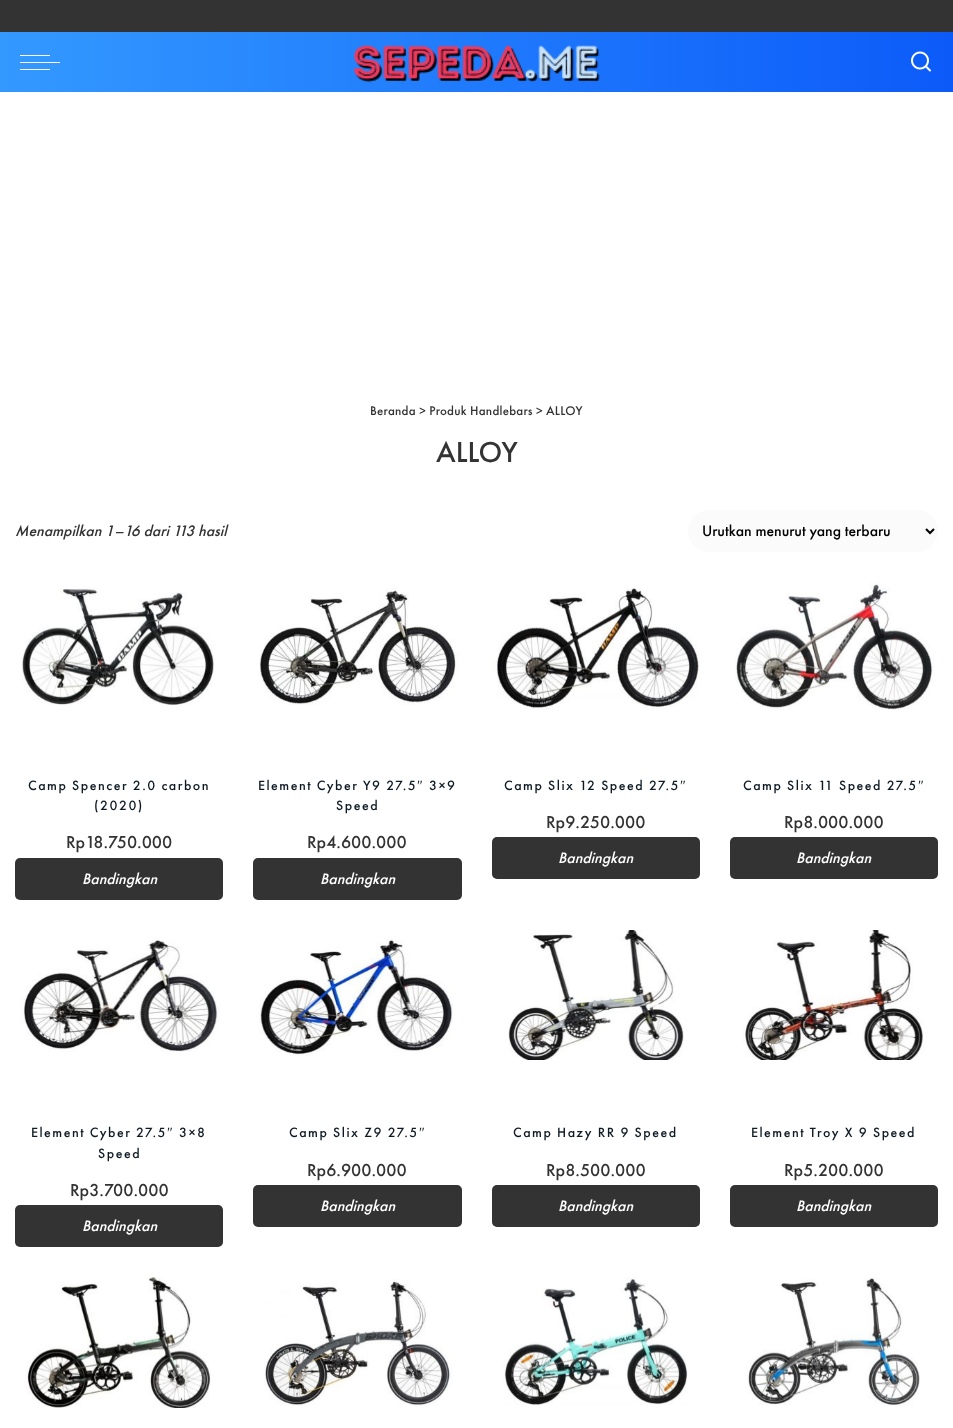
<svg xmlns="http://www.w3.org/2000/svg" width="953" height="1428">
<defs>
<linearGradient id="g1" gradientUnits="userSpaceOnUse" x1="0" y1="62" x2="953" y2="62"><stop offset="0" stop-color="#39f"/><stop offset="1" stop-color="#0c5bf9"/></linearGradient>
</defs>
<rect width="100%" height="100%" fill="#fff"/>
<rect width="953" height="32" fill="#333"/>
<rect y="32" width="953" height="60" fill="url(#g1)"/>
<rect x="20" y="62" width="40" height="1" fill="#fff"/>
<rect x="20" y="55" width="30" height="1" fill="#fff"/>
<rect x="20" y="69" width="30" height="1" fill="#fff"/>
<image x="353" y="45" width="247" height="38" href="media/1.png"/>
<image x="911" y="51" width="20" height="21" href="media/2.png"/>
<text x="370" y="415" style="font-family:Futura PT;font-size:13px;font-weight:500;letter-spacing:0.25px;fill:#333">Beranda &gt; Produk Handlebars &gt; ALLOY</text>
<text x="436" y="462" style="font-family:Futura PT;font-size:30px;font-weight:500;fill:#333">ALLOY</text>
<text x="15" y="536" style="font-family:Futura PT;font-size:15.75px;font-weight:500;font-style:italic;fill:#333">Menampilkan 1–16 dari 113 hasil</text>
<rect x="688" y="510" width="250" height="42" rx="21" fill="#fbfbfb"/>
<path d="M926 529l4 4l4-4" fill="none" stroke="#000" stroke-width="2"/>
<text x="702" y="536" style="font-family:Futura PT;font-size:15.75px;font-weight:500;fill:#000">Urutkan menurut yang terbaru</text>
<image x="21" y="588" width="194" height="118" href="media/3.png"/>
<text x="28" y="790" style="font-family:Futura PT;font-size:14px;font-weight:500;letter-spacing:1.5px;fill:#0e1b25">Camp Spencer 2.0 carbon</text>
<text x="94" y="810" style="font-family:Futura PT;font-size:14px;font-weight:500;letter-spacing:1.5px;fill:#0e1b25">(2020)</text>
<text x="66" y="848" style="font-family:Futura PT;font-size:18px;font-weight:500;fill:#333">Rp18.750.000</text>
<rect x="15" y="858" width="208" height="42" rx="5" fill="#333"/>
<text x="82" y="884" style="font-family:Futura PT;font-size:15.75px;font-weight:500;font-style:italic;fill:#fff">Bandingkan</text>
<image x="259" y="588" width="200" height="117" href="media/4.png"/>
<text x="258" y="790" style="font-family:Futura PT;font-size:14px;font-weight:500;letter-spacing:1.5px;fill:#0e1b25">Element Cyber Y9 27.5</text>
<text x="417" y="790" style="font-family:Liberation Serif;font-size:14px;letter-spacing:1.5px;fill:#0e1b25">″</text>
<text x="429" y="790" style="font-family:Futura PT;font-size:14px;font-weight:500;letter-spacing:1.5px;fill:#0e1b25">3×9</text>
<text x="336" y="810" style="font-family:Futura PT;font-size:14px;font-weight:500;letter-spacing:1.5px;fill:#0e1b25">Speed</text>
<text x="307" y="848" style="font-family:Futura PT;font-size:18px;font-weight:500;fill:#333">Rp4.600.000</text>
<rect x="253" y="858" width="209" height="42" rx="5" fill="#333"/>
<text x="320" y="884" style="font-family:Futura PT;font-size:15.75px;font-weight:500;font-style:italic;fill:#fff">Bandingkan</text>
<image x="492" y="588" width="208" height="122" href="media/5.png"/>
<text x="504" y="790" style="font-family:Futura PT;font-size:14px;font-weight:500;letter-spacing:1.5px;fill:#0e1b25">Camp Slix 12 Speed 27.5</text>
<text x="680" y="790" style="font-family:Liberation Serif;font-size:14px;letter-spacing:1.5px;fill:#0e1b25">″</text>
<text x="546" y="828" style="font-family:Futura PT;font-size:18px;font-weight:500;fill:#333">Rp9.250.000</text>
<rect x="492" y="837" width="208" height="42" rx="5" fill="#333"/>
<text x="558" y="863" style="font-family:Futura PT;font-size:15.75px;font-weight:500;font-style:italic;fill:#fff">Bandingkan</text>
<image x="735" y="582" width="199" height="128" href="media/6.png"/>
<text x="743" y="790" style="font-family:Futura PT;font-size:14px;font-weight:500;letter-spacing:1.5px;fill:#0e1b25">Camp Slix 11 Speed 27.5</text>
<text x="918" y="790" style="font-family:Liberation Serif;font-size:14px;letter-spacing:1.5px;fill:#0e1b25">″</text>
<text x="784" y="828" style="font-family:Futura PT;font-size:18px;font-weight:500;fill:#333">Rp8.000.000</text>
<rect x="730" y="837" width="208" height="42" rx="5" fill="#333"/>
<text x="796" y="863" style="font-family:Futura PT;font-size:15.75px;font-weight:500;font-style:italic;fill:#fff">Bandingkan</text>
<image x="21" y="937" width="199" height="115" href="media/7.png"/>
<text x="31" y="1137" style="font-family:Futura PT;font-size:14px;font-weight:500;letter-spacing:1.5px;fill:#0e1b25">Element Cyber 27.5</text>
<text x="167" y="1137" style="font-family:Liberation Serif;font-size:14px;letter-spacing:1.5px;fill:#0e1b25">″</text>
<text x="179" y="1137" style="font-family:Futura PT;font-size:14px;font-weight:500;letter-spacing:1.5px;fill:#0e1b25">3×8</text>
<text x="98" y="1158" style="font-family:Futura PT;font-size:14px;font-weight:500;letter-spacing:1.5px;fill:#0e1b25">Speed</text>
<text x="70" y="1196" style="font-family:Futura PT;font-size:18px;font-weight:500;fill:#333">Rp3.700.000</text>
<rect x="15" y="1205" width="208" height="42" rx="5" fill="#333"/>
<text x="82" y="1231" style="font-family:Futura PT;font-size:15.75px;font-weight:500;font-style:italic;fill:#fff">Bandingkan</text>
<image x="259" y="938" width="195" height="118" href="media/8.png"/>
<text x="289" y="1137" style="font-family:Futura PT;font-size:14px;font-weight:500;letter-spacing:1.5px;fill:#0e1b25">Camp Slix Z9 27.5</text>
<text x="419" y="1137" style="font-family:Liberation Serif;font-size:14px;letter-spacing:1.5px;fill:#0e1b25">″</text>
<text x="307" y="1176" style="font-family:Futura PT;font-size:18px;font-weight:500;fill:#333">Rp6.900.000</text>
<rect x="253" y="1185" width="209" height="42" rx="5" fill="#333"/>
<text x="320" y="1211" style="font-family:Futura PT;font-size:15.75px;font-weight:500;font-style:italic;fill:#fff">Bandingkan</text>
<image x="508" y="930" width="176" height="130" href="media/9.png"/>
<text x="513" y="1137" style="font-family:Futura PT;font-size:14px;font-weight:500;letter-spacing:1.5px;fill:#0e1b25">Camp Hazy RR 9 Speed</text>
<text x="546" y="1176" style="font-family:Futura PT;font-size:18px;font-weight:500;fill:#333">Rp8.500.000</text>
<rect x="492" y="1185" width="208" height="42" rx="5" fill="#333"/>
<text x="558" y="1211" style="font-family:Futura PT;font-size:15.75px;font-weight:500;font-style:italic;fill:#fff">Bandingkan</text>
<image x="742" y="930" width="182" height="130" href="media/10.png"/>
<text x="751" y="1137" style="font-family:Futura PT;font-size:14px;font-weight:500;letter-spacing:1.5px;fill:#0e1b25">Element Troy X 9 Speed</text>
<text x="784" y="1176" style="font-family:Futura PT;font-size:18px;font-weight:500;fill:#333">Rp5.200.000</text>
<rect x="730" y="1185" width="208" height="42" rx="5" fill="#333"/>
<text x="796" y="1211" style="font-family:Futura PT;font-size:15.75px;font-weight:500;font-style:italic;fill:#fff">Bandingkan</text>
<image x="26" y="1277" width="185" height="131" href="media/11.png"/>
<image x="264" y="1279" width="190" height="127" href="media/12.png"/>
<image x="503" y="1277" width="185" height="128" href="media/13.png"/>
<image x="747" y="1277" width="173" height="129" href="media/14.png"/>
</svg>
